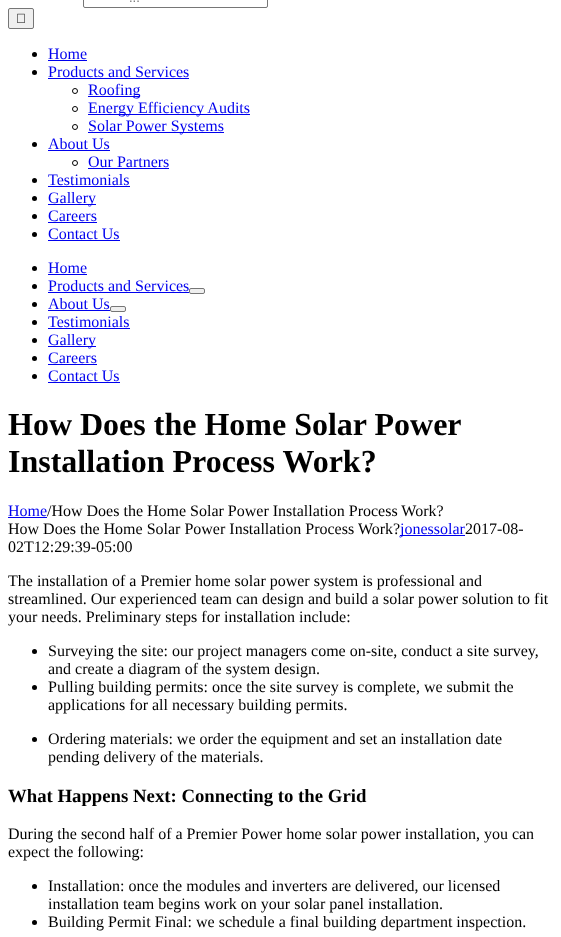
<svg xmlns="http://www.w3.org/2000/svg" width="561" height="937">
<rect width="100%" height="100%" fill="#fff"/>
<rect x="83.5" y="-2.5" width="184" height="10" rx="1.5" fill="none" stroke="#767676"/>
<text x="129" y="2" style="font-family:Liberation Sans;font-size:13px;fill:#757575">...</text>
<rect x="8.5" y="8.5" width="25" height="20" rx="1.5" fill="#efefef" stroke="#767676"/>
<image x="17" y="13" width="8" height="10" href="media/1.png"/>
<circle cx="34.5" cy="54.5" r="2.5" fill="#000"/>
<text x="48" y="59" style="font-family:Liberation Serif;font-size:16px;fill:#00e">Home</text>
<rect x="48" y="60" width="39" height="1" fill="#00e"/>
<circle cx="34.5" cy="72.5" r="2.5" fill="#000"/>
<text x="48" y="77" style="font-family:Liberation Serif;font-size:16px;fill:#00e">Products and Services</text>
<rect x="48" y="78" width="141" height="1" fill="#00e"/>
<circle cx="75" cy="91" r="2.5" fill="none" stroke="#000"/>
<rect x="88" y="96" width="52" height="1" fill="#00e"/>
<text x="88" y="95" style="font-family:Liberation Serif;font-size:16px;fill:#00e">Roofing</text>
<circle cx="75" cy="109" r="2.5" fill="none" stroke="#000"/>
<rect x="88" y="114" width="162" height="1" fill="#00e"/>
<text x="88" y="113" style="font-family:Liberation Serif;font-size:16px;fill:#00e">Energy Efficiency Audits</text>
<circle cx="75" cy="127" r="2.5" fill="none" stroke="#000"/>
<rect x="88" y="132" width="136" height="1" fill="#00e"/>
<text x="88" y="131" style="font-family:Liberation Serif;font-size:16px;fill:#00e">Solar Power Systems</text>
<circle cx="34.5" cy="144.5" r="2.5" fill="#000"/>
<text x="48" y="149" style="font-family:Liberation Serif;font-size:16px;fill:#00e">About Us</text>
<rect x="48" y="150" width="62" height="1" fill="#00e"/>
<circle cx="75" cy="163" r="2.5" fill="none" stroke="#000"/>
<text x="88" y="167" style="font-family:Liberation Serif;font-size:16px;fill:#00e">Our Partners</text>
<rect x="88" y="168" width="81" height="1" fill="#00e"/>
<circle cx="34.5" cy="180.5" r="2.5" fill="#000"/>
<text x="48" y="185" style="font-family:Liberation Serif;font-size:16px;fill:#00e">Testimonials</text>
<rect x="48" y="186" width="82" height="1" fill="#00e"/>
<circle cx="34.5" cy="198.5" r="2.5" fill="#000"/>
<rect x="48" y="204" width="48" height="1" fill="#00e"/>
<text x="48" y="203" style="font-family:Liberation Serif;font-size:16px;fill:#00e">Gallery</text>
<circle cx="34.5" cy="216.5" r="2.5" fill="#000"/>
<text x="48" y="221" style="font-family:Liberation Serif;font-size:16px;fill:#00e">Careers</text>
<rect x="48" y="222" width="49" height="1" fill="#00e"/>
<circle cx="34.5" cy="234.5" r="2.5" fill="#000"/>
<text x="48" y="239" style="font-family:Liberation Serif;font-size:16px;fill:#00e">Contact Us</text>
<rect x="48" y="240" width="72" height="1" fill="#00e"/>
<circle cx="34.5" cy="268.5" r="2.5" fill="#000"/>
<text x="48" y="273" style="font-family:Liberation Serif;font-size:16px;fill:#00e">Home</text>
<rect x="48" y="274" width="39" height="1" fill="#00e"/>
<circle cx="34.5" cy="286.5" r="2.5" fill="#000"/>
<text x="48" y="291" style="font-family:Liberation Serif;font-size:16px;fill:#00e">Products and Services</text>
<rect x="48" y="292" width="141" height="1" fill="#00e"/>
<rect x="189.5" y="288.5" width="15" height="5" rx="1.5" fill="#efefef" stroke="#767676"/>
<circle cx="34.5" cy="304.5" r="2.5" fill="#000"/>
<text x="48" y="309" style="font-family:Liberation Serif;font-size:16px;fill:#00e">About Us</text>
<rect x="48" y="310" width="62" height="1" fill="#00e"/>
<rect x="110.5" y="306.5" width="15" height="5" rx="1.5" fill="#efefef" stroke="#767676"/>
<circle cx="34.5" cy="322.5" r="2.5" fill="#000"/>
<text x="48" y="327" style="font-family:Liberation Serif;font-size:16px;fill:#00e">Testimonials</text>
<rect x="48" y="328" width="82" height="1" fill="#00e"/>
<circle cx="34.5" cy="340.5" r="2.5" fill="#000"/>
<rect x="48" y="346" width="48" height="1" fill="#00e"/>
<text x="48" y="345" style="font-family:Liberation Serif;font-size:16px;fill:#00e">Gallery</text>
<circle cx="34.5" cy="358.5" r="2.5" fill="#000"/>
<text x="48" y="363" style="font-family:Liberation Serif;font-size:16px;fill:#00e">Careers</text>
<rect x="48" y="364" width="49" height="1" fill="#00e"/>
<circle cx="34.5" cy="376.5" r="2.5" fill="#000"/>
<text x="48" y="381" style="font-family:Liberation Serif;font-size:16px;fill:#00e">Contact Us</text>
<rect x="48" y="382" width="72" height="1" fill="#00e"/>
<text x="8" y="435" style="font-family:Liberation Serif;font-size:32px;font-weight:bold;fill:#000">How Does the Home Solar Power</text>
<text x="8" y="472" style="font-family:Liberation Serif;font-size:32px;font-weight:bold;fill:#000">Installation Process Work?</text>
<text x="8" y="516" style="font-family:Liberation Serif;font-size:16px;fill:#00e">Home</text>
<rect x="8" y="517" width="39" height="1" fill="#00e"/>
<text x="47" y="516" style="font-family:Liberation Serif;font-size:16px;fill:#000">/How Does the Home Solar Power Installation Process Work?</text>
<text x="8" y="534" style="font-family:Liberation Serif;font-size:16px;fill:#000">How Does the Home Solar Power Installation Process Work?</text>
<rect x="400" y="535" width="65" height="1" fill="#00e"/>
<text x="400" y="534" style="font-family:Liberation Serif;font-size:16px;fill:#00e">jonessolar</text>
<text x="465" y="534" style="font-family:Liberation Serif;font-size:16px;fill:#000">2017-08-</text>
<text x="8" y="552" style="font-family:Liberation Serif;font-size:16px;fill:#000">02T12:29:39-05:00</text>
<text x="8" y="586" style="font-family:Liberation Serif;font-size:16px;fill:#000">The installation of a Premier home solar power system is professional and</text>
<text x="8" y="604" style="font-family:Liberation Serif;font-size:16px;fill:#000">streamlined. Our experienced team can design and build a solar power solution to fit</text>
<text x="8" y="622" style="font-family:Liberation Serif;font-size:16px;fill:#000">your needs. Preliminary steps for installation include:</text>
<circle cx="34.5" cy="651.5" r="2.5" fill="#000"/>
<text x="48" y="656" style="font-family:Liberation Serif;font-size:16px;fill:#000">Surveying the site: our project managers come on-site, conduct a site survey,</text>
<text x="48" y="674" style="font-family:Liberation Serif;font-size:16px;fill:#000">and create a diagram of the system design.</text>
<circle cx="34.5" cy="687.5" r="2.5" fill="#000"/>
<text x="48" y="692" style="font-family:Liberation Serif;font-size:16px;fill:#000">Pulling building permits: once the site survey is complete, we submit the</text>
<text x="48" y="710" style="font-family:Liberation Serif;font-size:16px;fill:#000">applications for all necessary building permits.</text>
<circle cx="34.5" cy="739.5" r="2.5" fill="#000"/>
<text x="48" y="744" style="font-family:Liberation Serif;font-size:16px;fill:#000">Ordering materials: we order the equipment and set an installation date</text>
<text x="48" y="762" style="font-family:Liberation Serif;font-size:16px;fill:#000">pending delivery of the materials.</text>
<text x="8" y="802" style="font-family:Liberation Serif;font-size:18.75px;font-weight:bold;fill:#000">What Happens Next: Connecting to the Grid</text>
<text x="8" y="839" style="font-family:Liberation Serif;font-size:16px;fill:#000">During the second half of a Premier Power home solar power installation, you can</text>
<text x="8" y="857" style="font-family:Liberation Serif;font-size:16px;fill:#000">expect the following:</text>
<circle cx="34.5" cy="886.5" r="2.5" fill="#000"/>
<text x="48" y="891" style="font-family:Liberation Serif;font-size:16px;fill:#000">Installation: once the modules and inverters are delivered, our licensed</text>
<text x="48" y="909" style="font-family:Liberation Serif;font-size:16px;fill:#000">installation team begins work on your solar panel installation.</text>
<circle cx="34.5" cy="922.5" r="2.5" fill="#000"/>
<text x="48" y="927" style="font-family:Liberation Serif;font-size:16px;fill:#000">Building Permit Final: we schedule a final building department inspection.</text>
</svg>
